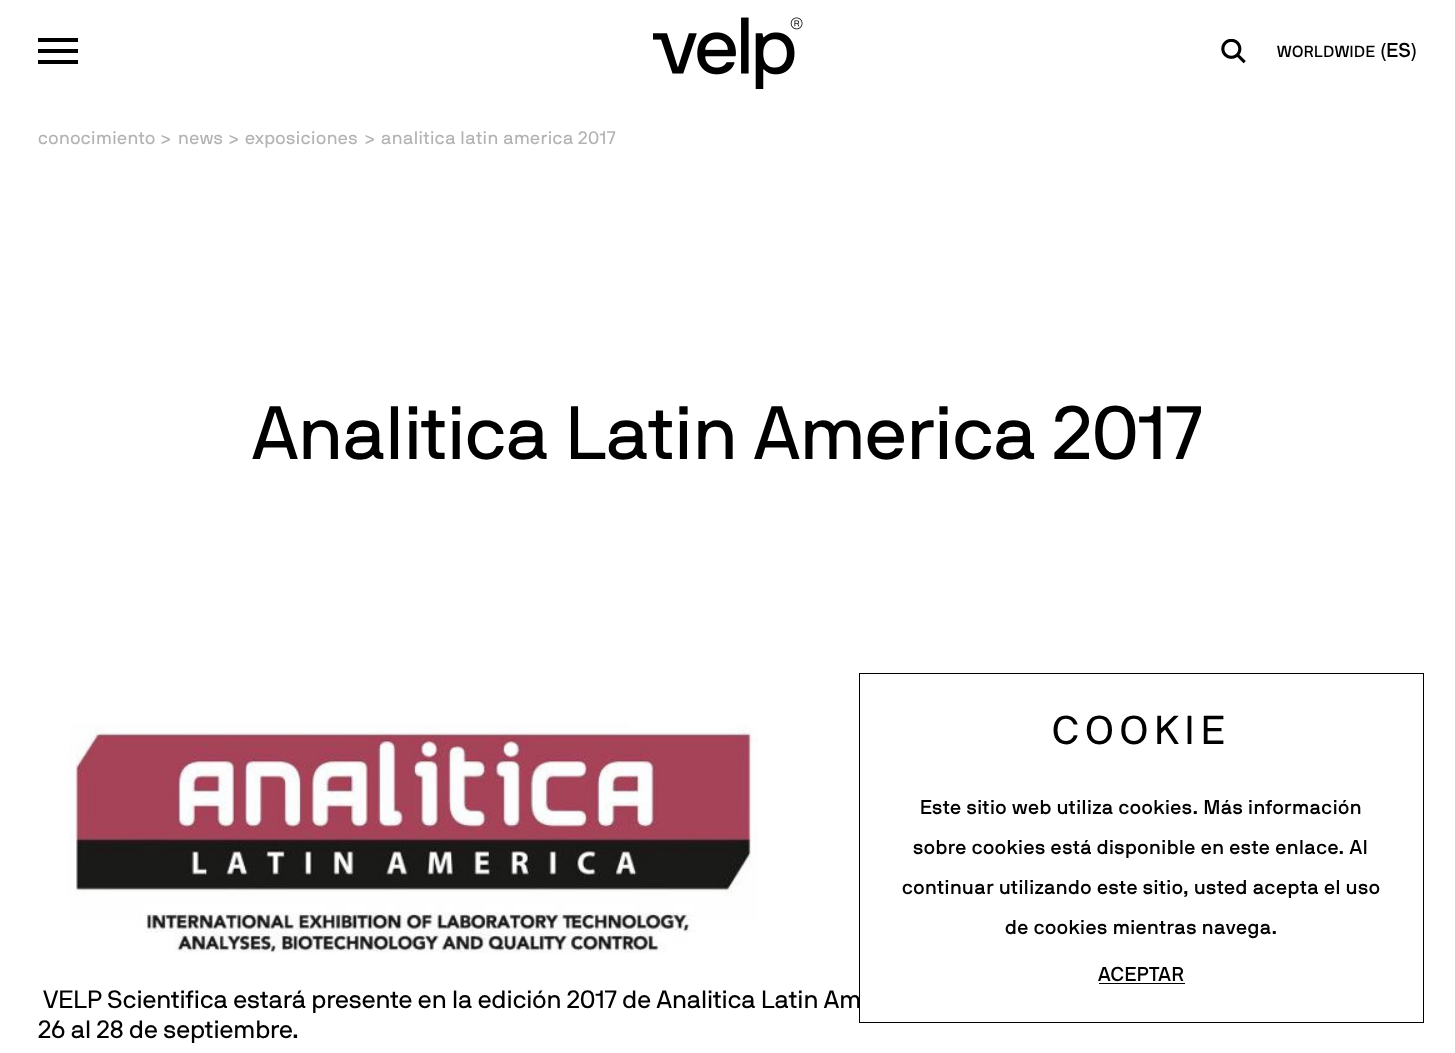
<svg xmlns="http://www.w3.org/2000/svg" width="1455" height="1053">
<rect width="100%" height="100%" fill="#fff"/>
<rect x="38" y="38" width="40" height="4" fill="#000"/>
<rect x="38" y="49" width="40" height="4" fill="#000"/>
<rect x="38" y="60" width="40" height="4" fill="#000"/>
<image x="653" y="17" width="150" height="72" href="media/1.png"/>
<image x="1221" y="39" width="25" height="25" href="media/2.png"/>
<text x="1277" y="57" style="font-family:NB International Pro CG;font-size:16px;font-weight:500;letter-spacing:0.5px;fill:#000">WORLDWIDE</text>
<text x="1380" y="57" style="font-family:NB International Pro CG;font-size:20px;font-weight:500;letter-spacing:0.5px;fill:#000">(ES)</text>
<text x="38" y="144" style="font-family:NB International Pro CG;font-size:18px;letter-spacing:0.5px;fill:#b3b3b3">conocimiento</text>
<text x="161" y="144" style="font-family:NB International Pro CG;font-size:18px;letter-spacing:0.5px;fill:#b3b3b3">&gt;</text>
<text x="178" y="144" style="font-family:NB International Pro CG;font-size:18px;letter-spacing:0.5px;fill:#b3b3b3">news</text>
<text x="229" y="144" style="font-family:NB International Pro CG;font-size:18px;letter-spacing:0.5px;fill:#b3b3b3">&gt;</text>
<text x="245" y="144" style="font-family:NB International Pro CG;font-size:18px;letter-spacing:0.5px;fill:#b3b3b3">exposiciones</text>
<text x="365" y="144" style="font-family:NB International Pro CG;font-size:18px;letter-spacing:0.5px;fill:#b3b3b3">&gt;</text>
<text x="381" y="144" style="font-family:NB International Pro CG;font-size:18px;letter-spacing:0.5px;fill:#b3b3b3">analitica latin america 2017</text>
<text x="252" y="459" style="font-family:NB International Pro CG;font-size:75px;fill:#000">Analitica Latin America 2017</text>
<image x="69" y="723" width="689" height="230" href="media/3.png"/>
<text x="43" y="1008" style="font-family:NB International Pro CG;font-size:25px;fill:#000">VELP Scientifica estará presente en la edición 2017 de Analitica Latin Am</text>
<text x="38" y="1038" style="font-family:NB International Pro CG;font-size:25px;fill:#000">26 al 28 de septiembre.</text>
<rect x="859.5" y="673.5" width="564" height="349" fill="none" stroke="#000"/>
<text x="1052" y="744" style="font-family:NB International Pro CG;font-size:40px;letter-spacing:6.25px;fill:#000">COOKIE</text>
<text x="920" y="814" style="font-family:NB International Pro CG;font-size:20px;font-weight:500;letter-spacing:0.5px;fill:#000">Este sitio web utiliza cookies. Más información</text>
<text x="913" y="854" style="font-family:NB International Pro CG;font-size:20px;font-weight:500;letter-spacing:0.5px;fill:#000">sobre cookies está disponible en este enlace. Al</text>
<text x="902" y="894" style="font-family:NB International Pro CG;font-size:20px;font-weight:500;letter-spacing:0.5px;fill:#000">continuar utilizando este sitio, usted acepta el uso</text>
<text x="1005" y="934" style="font-family:NB International Pro CG;font-size:20px;font-weight:500;letter-spacing:0.5px;fill:#000">de cookies mientras navega.</text>
<text x="1098" y="981" style="font-family:NB International Pro CG;font-size:20px;font-weight:500;letter-spacing:0.5px;fill:#000">ACEPTAR</text>
<rect x="1099" y="983" width="86" height="1" fill="#000"/>
</svg>
